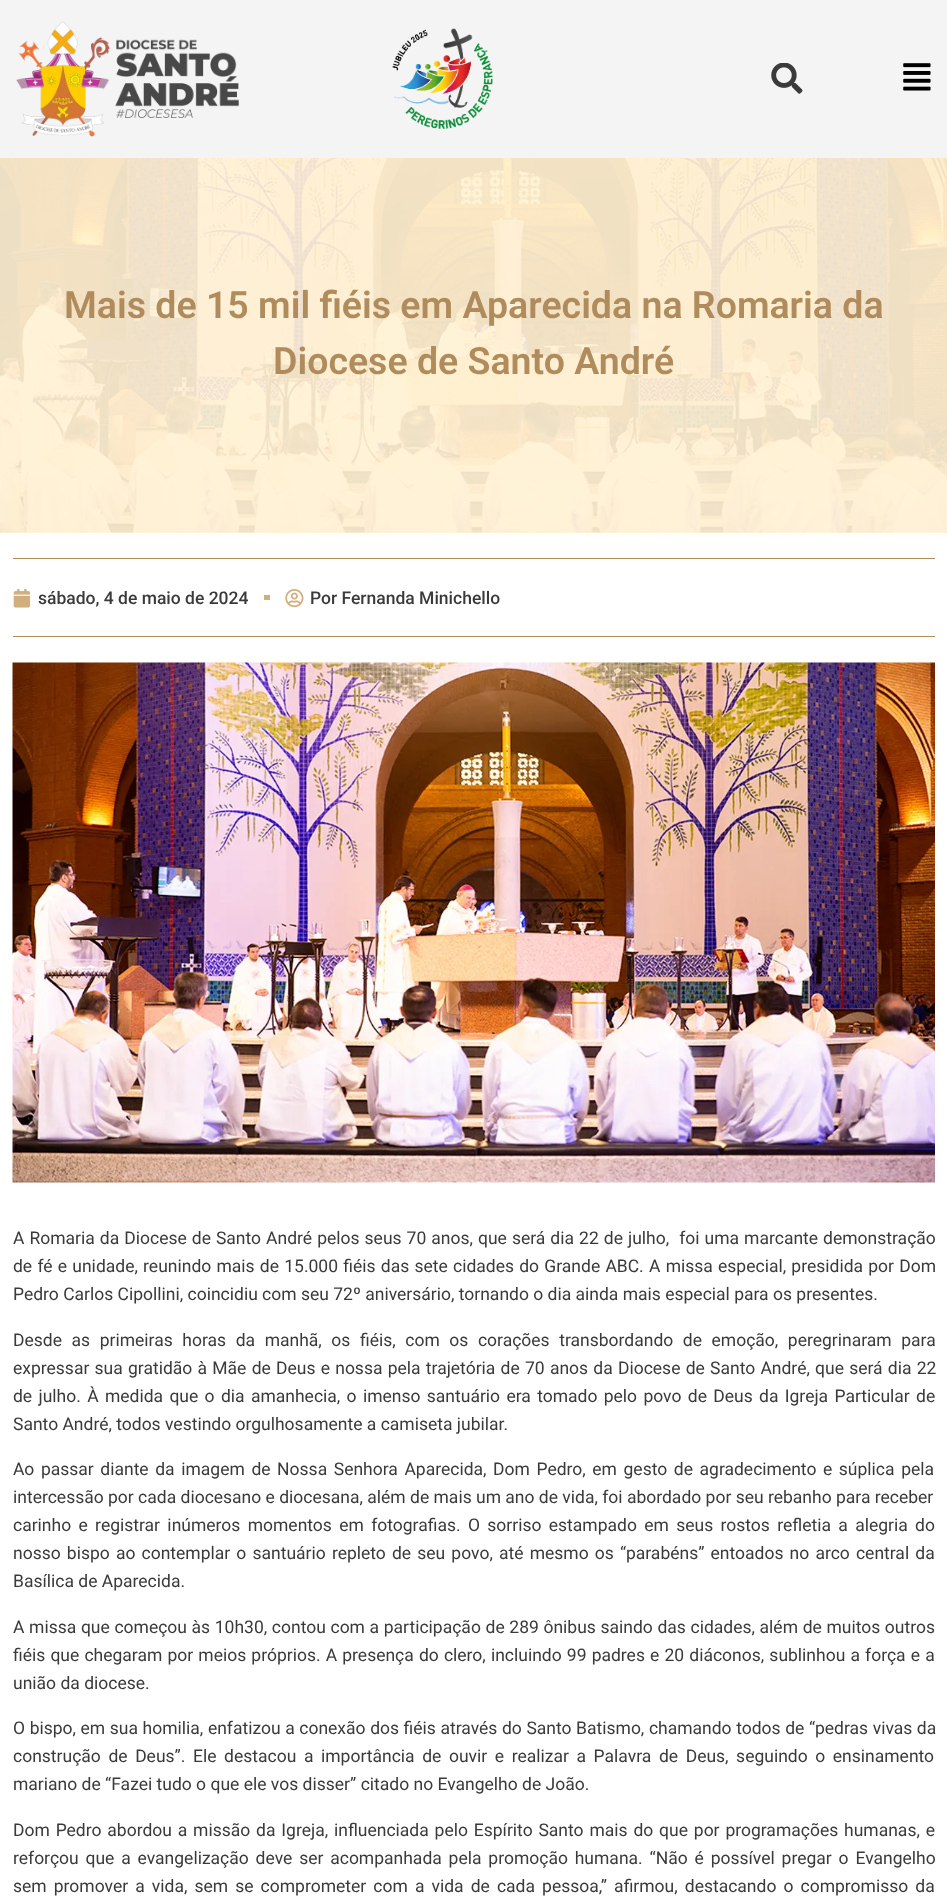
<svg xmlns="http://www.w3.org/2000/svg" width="947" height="1903">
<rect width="100%" height="100%" fill="#fff"/>
<rect y="532" width="947" height="1" fill="#fff3d7"/>
<rect width="947" height="158" fill="#f4f4f4"/>
<image x="16" y="21" width="223" height="116" href="media/1.png"/>
<image x="392" y="28" width="101" height="101" href="media/2.png"/>
<image x="771" y="63" width="32" height="31" href="media/3.png"/>
<image x="903" y="63" width="28" height="28" href="media/4.png"/>
<image x="0" y="158" width="947" height="375" href="media/5.png"/>
<text x="64" y="318" style="font-family:Roboto;font-size:37.5px;font-weight:600;fill:#b08c5d">Mais de 15 mil fiéis em Aparecida na Romaria da</text>
<text x="273" y="374" style="font-family:Roboto;font-size:37.5px;font-weight:600;fill:#b08c5d">Diocese de Santo André</text>
<rect x="13" y="558" width="922" height="1" fill="#b08c5d"/>
<rect x="13" y="636" width="922" height="1" fill="#b08c5d"/>
<image x="13" y="589" width="18" height="19" href="media/6.png"/>
<text x="38" y="604" style="font-family:Roboto;font-size:17.5px;font-weight:500;fill:#3a3a3a">sábado, 4 de maio de 2024</text>
<rect x="264" y="595" width="6" height="5" fill="#d1ae7e"/>
<image x="285" y="589" width="19" height="19" href="media/7.png"/>
<text x="310" y="604" style="font-family:Roboto;font-size:17.5px;font-weight:500;fill:#3a3a3a">Por Fernanda Minichello</text>
<image x="12" y="662" width="923" height="521" href="media/8.png"/>
<text x="13" y="1244" word-spacing="0.7" style="font-family:Roboto;font-size:17.5px;fill:#3a3a3a" xml:space="preserve">A Romaria da Diocese de Santo André pelos seus 70 anos, que será dia 22 de julho,  foi uma marcante demonstração</text>
<text x="13" y="1272" word-spacing="0.9" style="font-family:Roboto;font-size:17.5px;fill:#3a3a3a">de fé e unidade, reunindo mais de 15.000 fiéis das sete cidades do Grande ABC. A missa especial, presidida por Dom</text>
<text x="13" y="1300" style="font-family:Roboto;font-size:17.5px;fill:#3a3a3a">Pedro Carlos Cipollini, coincidiu com seu 72º aniversário, tornando o dia ainda mais especial para os presentes.</text>
<text x="13" y="1346" word-spacing="5.25" style="font-family:Roboto;font-size:17.5px;fill:#3a3a3a">Desde as primeiras horas da manhã, os fiéis, com os corações transbordando de emoção, peregrinaram para</text>
<text x="13" y="1374" word-spacing="0.9" style="font-family:Roboto;font-size:17.5px;fill:#3a3a3a">expressar sua gratidão à Mãe de Deus e nossa pela trajetória de 70 anos da Diocese de Santo André, que será dia 22</text>
<text x="13" y="1402" word-spacing="2" style="font-family:Roboto;font-size:17.5px;fill:#3a3a3a">de julho. À medida que o dia amanhecia, o imenso santuário era tomado pelo povo de Deus da Igreja Particular de</text>
<text x="13" y="1430" style="font-family:Roboto;font-size:17.5px;fill:#3a3a3a">Santo André, todos vestindo orgulhosamente a camiseta jubilar.</text>
<text x="13" y="1475" word-spacing="2.25" style="font-family:Roboto;font-size:17.5px;fill:#3a3a3a">Ao passar diante da imagem de Nossa Senhora Aparecida, Dom Pedro, em gesto de agradecimento e súplica pela</text>
<text x="13" y="1503" style="font-family:Roboto;font-size:17.5px;fill:#3a3a3a">intercessão por cada diocesano e diocesana, além de mais um ano de vida, foi abordado por seu rebanho para receber</text>
<text x="13" y="1531" word-spacing="3" style="font-family:Roboto;font-size:17.5px;fill:#3a3a3a">carinho e registrar inúmeros momentos em fotografias. O sorriso estampado em seus rostos refletia a alegria do</text>
<text x="13" y="1559" word-spacing="1.8" style="font-family:Roboto;font-size:17.5px;fill:#3a3a3a">nosso bispo ao contemplar o santuário repleto de seu povo, até mesmo os “parabéns” entoados no arco central da</text>
<text x="13" y="1587" style="font-family:Roboto;font-size:17.5px;fill:#3a3a3a">Basílica de Aparecida.</text>
<text x="13" y="1633" word-spacing="0.3" style="font-family:Roboto;font-size:17.5px;fill:#3a3a3a">A missa que começou às 10h30, contou com a participação de 289 ônibus saindo das cidades, além de muitos outros</text>
<text x="13" y="1661" word-spacing="0.8" style="font-family:Roboto;font-size:17.5px;fill:#3a3a3a">fiéis que chegaram por meios próprios. A presença do clero, incluindo 99 padres e 20 diáconos, sublinhou a força e a</text>
<text x="13" y="1689" style="font-family:Roboto;font-size:17.5px;fill:#3a3a3a">união da diocese.</text>
<text x="13" y="1734" word-spacing="0.25" style="font-family:Roboto;font-size:17.5px;fill:#3a3a3a">O bispo, em sua homilia, enfatizou a conexão dos fiéis através do Santo Batismo, chamando todos de “pedras vivas da</text>
<text x="13" y="1762" word-spacing="3.25" style="font-family:Roboto;font-size:17.5px;fill:#3a3a3a">construção de Deus”. Ele destacou a importância de ouvir e realizar a Palavra de Deus, seguindo o ensinamento</text>
<text x="13" y="1790" style="font-family:Roboto;font-size:17.5px;fill:#3a3a3a">mariano de “Fazei tudo o que ele vos disser” citado no Evangelho de João.</text>
<text x="13" y="1836" word-spacing="1.5" style="font-family:Roboto;font-size:17.5px;fill:#3a3a3a">Dom Pedro abordou a missão da Igreja, influenciada pelo Espírito Santo mais do que por programações humanas, e</text>
<text x="13" y="1864" word-spacing="2.5" style="font-family:Roboto;font-size:17.5px;fill:#3a3a3a">reforçou que a evangelização deve ser acompanhada pela promoção humana. “Não é possível pregar o Evangelho</text>
<text x="13" y="1892" word-spacing="2.75" style="font-family:Roboto;font-size:17.5px;fill:#3a3a3a">sem promover a vida, sem se comprometer com a vida de cada pessoa,” afirmou, destacando o compromisso da</text>
</svg>
